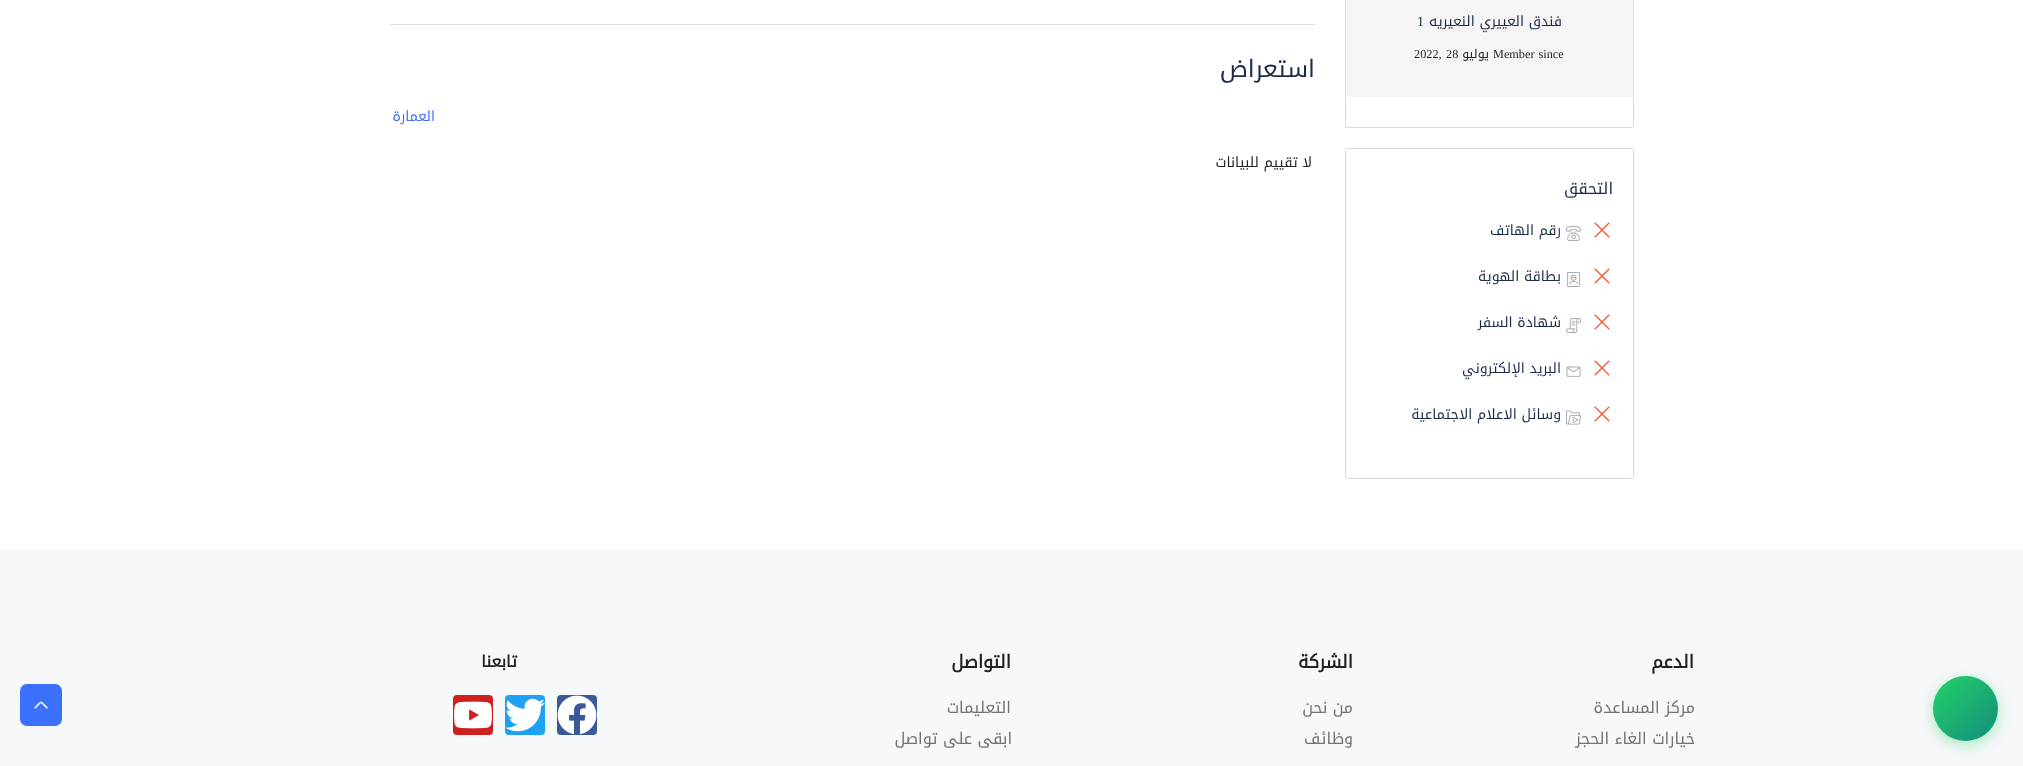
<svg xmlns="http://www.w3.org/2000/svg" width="2023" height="766">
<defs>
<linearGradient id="g1" gradientUnits="userSpaceOnUse" x1="1933" y1="676" x2="1998" y2="741"><stop offset="0" stop-color="#25d366"/><stop offset="1" stop-color="#128c7e"/></linearGradient>
</defs>
<rect width="100%" height="100%" fill="#fff"/>
<rect x="1346" width="287" height="97" fill="#f5f5f5"/>
<path d="M1348-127h283c2 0 3 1 3 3v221h-289v-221c0-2 1-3 3-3zm0 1h283c1 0 2 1 2 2v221h-287v-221c0-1 1-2 2-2z" fill="#d7dce3" fill-rule="evenodd"/>
<text x="1562" y="26" style="font-family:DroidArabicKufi;font-size:14px;direction:rtl;fill:#1a2b48">فندق العييري النعيريه</text>
<text x="1417" y="26" style="font-family:Liberation Serif;font-size:14px;fill:#1a2b48">1</text>
<text x="1493" y="58" word-spacing="1" style="font-family:Liberation Serif;font-size:12.25px;fill:#232323">Member since</text>
<text x="1489" y="58" style="font-family:DroidArabicKufi;font-size:12.25px;direction:rtl;fill:#232323">يوليو</text>
<text x="1446" y="58" style="font-family:Liberation Serif;font-size:12.25px;fill:#232323">28</text>
<text x="1414" y="58" style="font-family:Liberation Serif;font-size:12.25px;fill:#232323">2022,</text>
<path d="M1345 97h289v28c0 2-1 3-3 3h-283c-2 0-3-1-3-3zm1 0h287v28c0 1-1 2-2 2h-283c-1 0-2-1-2-2z" fill="#d7dce3" fill-rule="evenodd"/>
<rect x="1345.5" y="148.5" width="288" height="330" rx="2.5" fill="none" stroke="#d7dce3"/>
<text x="1613" y="194" style="font-family:DroidArabicKufi;font-size:16px;direction:rtl;fill:#1a2b48">التحقق</text>
<image x="1594" y="222" width="16" height="16" href="media/1.png"/>
<image x="1566" y="226" width="15" height="15" href="media/2.png"/>
<text x="1561" y="235" style="font-family:DroidArabicKufi;font-size:14px;direction:rtl;fill:#1a2b48">رقم الهاتف</text>
<image x="1594" y="268" width="16" height="16" href="media/1.png"/>
<image x="1566" y="272" width="15" height="15" href="media/3.png"/>
<text x="1561" y="281" style="font-family:DroidArabicKufi;font-size:14px;direction:rtl;fill:#1a2b48">بطاقة الهوية</text>
<image x="1594" y="314" width="16" height="16" href="media/1.png"/>
<image x="1566" y="318" width="15" height="15" href="media/4.png"/>
<text x="1561" y="327" style="font-family:DroidArabicKufi;font-size:14px;direction:rtl;fill:#1a2b48">شهادة السفر</text>
<image x="1594" y="360" width="16" height="16" href="media/1.png"/>
<image x="1566" y="366" width="15" height="11" href="media/5.png"/>
<text x="1561" y="373" style="font-family:DroidArabicKufi;font-size:14px;direction:rtl;fill:#1a2b48">البريد الإلكتروني</text>
<image x="1594" y="406" width="16" height="16" href="media/1.png"/>
<image x="1566" y="410" width="15" height="15" href="media/6.png"/>
<text x="1561" y="419" style="font-family:DroidArabicKufi;font-size:14px;direction:rtl;fill:#1a2b48">وسائل الاعلام الاجتماعية</text>
<rect x="390" y="24" width="925" height="1" fill="#dfdfdf"/>
<text x="1315" y="77" style="font-family:DroidArabicKufi;font-size:24px;direction:rtl;fill:#1a2b48">استعراض</text>
<text x="435" y="121" style="font-family:DroidArabicKufi;font-size:14px;direction:rtl;fill:#3b71fe">العمارة</text>
<text x="1312" y="167" style="font-family:DroidArabicKufi;font-size:14px;direction:rtl;fill:#232323">لا تقييم للبيانات</text>
<rect y="549" width="2023" height="217" fill="#f7f8fa"/>
<rect x="1933" y="680" width="65" height="65" rx="32.5" fill="#25d36666" filter="blur(7.5px)"/>
<circle cx="1965.5" cy="708.5" r="32.5" fill="url(#g1)"/>
<text x="1694" y="668" style="font-family:DroidArabicKufi;font-size:18px;font-weight:bold;direction:rtl;fill:#232323">الدعم</text>
<text x="1695" y="713" style="font-family:DroidArabicKufi;font-size:16px;direction:rtl;fill:#727272">مركز المساعدة</text>
<text x="1695" y="744" style="font-family:DroidArabicKufi;font-size:16px;direction:rtl;fill:#727272">خيارات الغاء الحجز</text>
<text x="1353" y="668" style="font-family:DroidArabicKufi;font-size:18px;font-weight:bold;direction:rtl;fill:#232323">الشركة</text>
<text x="1353" y="713" style="font-family:DroidArabicKufi;font-size:16px;direction:rtl;fill:#727272">من نحن</text>
<text x="1353" y="744" style="font-family:DroidArabicKufi;font-size:16px;direction:rtl;fill:#727272">وظائف</text>
<text x="1011" y="668" style="font-family:DroidArabicKufi;font-size:18px;font-weight:bold;direction:rtl;fill:#232323">التواصل</text>
<text x="1011" y="713" style="font-family:DroidArabicKufi;font-size:16px;direction:rtl;fill:#727272">التعليمات</text>
<text x="1012" y="744" style="font-family:DroidArabicKufi;font-size:16px;direction:rtl;fill:#727272">ابقى على تواصل</text>
<text x="517" y="667" style="font-family:DroidArabicKufi;font-size:16px;font-weight:bold;direction:rtl;fill:#232323">تابعنا</text>
<rect x="557" y="695" width="40" height="40" rx="4" fill="#3b5998"/>
<image x="557" y="695" width="40" height="40" href="media/7.png"/>
<rect x="505" y="695" width="40" height="40" rx="4" fill="#1da1f2"/>
<image x="505" y="698" width="40" height="34" href="media/8.png"/>
<rect x="453" y="695" width="40" height="40" rx="4" fill="#cd201f"/>
<image x="454" y="701" width="38" height="28" href="media/9.png"/>
<rect x="20" y="684" width="42" height="42" rx="7" fill="#3b71fe"/>
<image x="34" y="701" width="14" height="8" href="media/10.png"/>
</svg>
